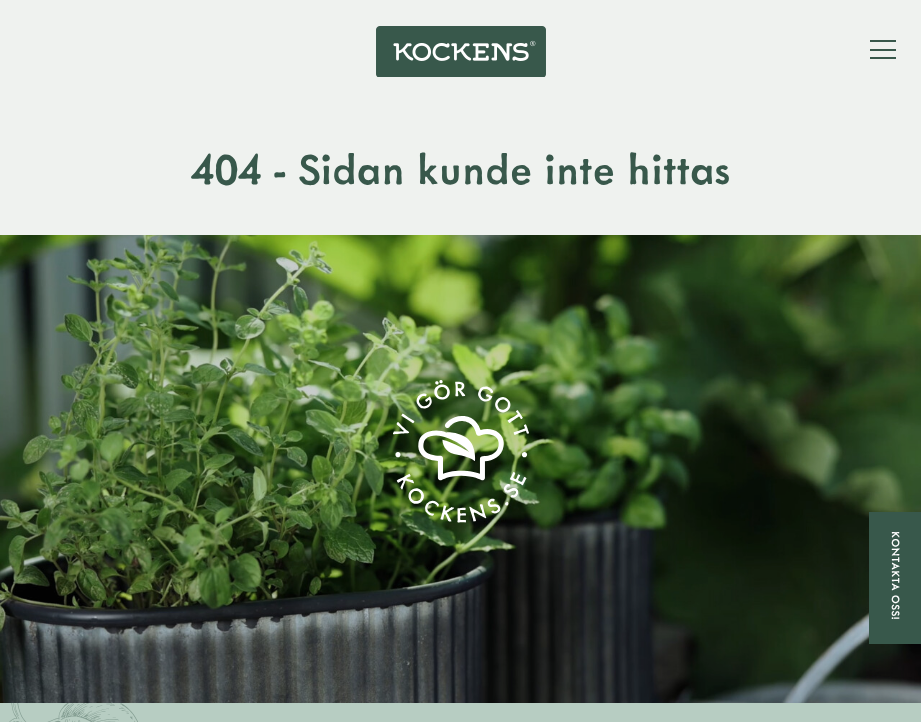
<svg xmlns="http://www.w3.org/2000/svg" width="921" height="722">
<rect width="100%" height="100%" fill="#eff2ef"/>
<image x="376" y="26" width="170" height="51" href="media/1.png"/>
<rect x="870" y="40" width="26" height="2" fill="#38584b"/>
<rect x="870" y="49" width="26" height="2" fill="#38584b"/>
<rect x="870" y="57" width="26" height="2" fill="#38584b"/>
<text x="191" y="184" style="font-family:'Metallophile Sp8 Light';font-size:47.6px;font-weight:500;fill:#38584b">404 - Sidan kunde inte hittas</text>
<image x="0" y="235" width="921" height="468" href="media/2.png"/>
<image x="393" y="380" width="136" height="143" href="media/3.png"/>
<rect y="703" width="921" height="19" fill="#b7cdc2"/>
<image x="9" y="703" width="129" height="19" href="media/4.png"/>
<rect x="869" y="512" width="52" height="132" fill="#38584b"/>
<text x="892" y="531" transform="rotate(90 892 531)" style="font-family:'Metallophile Sp8 Light';font-size:12px;font-weight:500;letter-spacing:0.6px;fill:#fff">KONTAKTA OSS!</text>
</svg>
